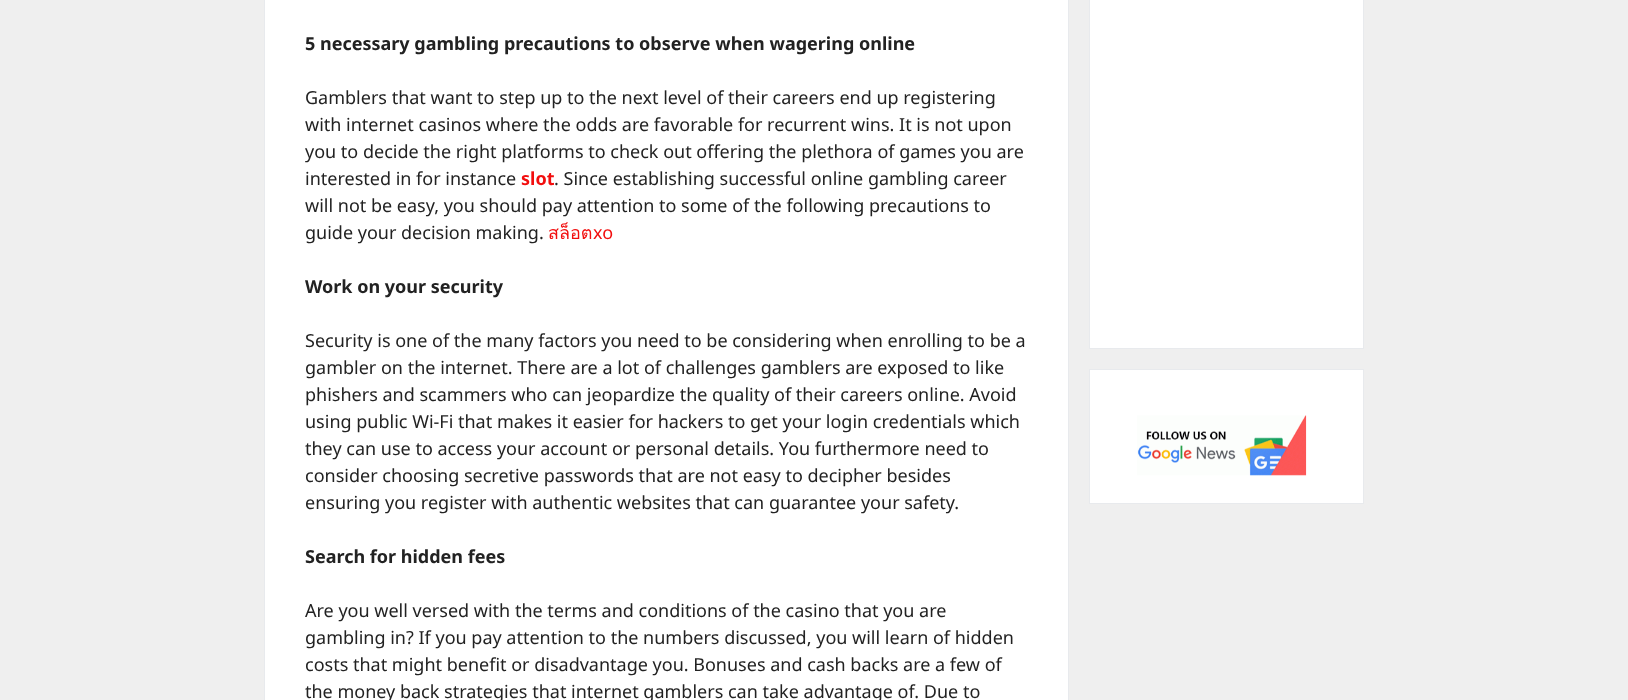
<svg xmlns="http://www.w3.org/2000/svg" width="1628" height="700">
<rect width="100%" height="100%" fill="#efefef"/>
<rect x="264.5" y="-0.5" width="804" height="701" fill="#fff" stroke="#e8eaed"/>
<text x="305" y="50" style="font-family:Noto Sans;font-size:18px;font-weight:bold;fill:#222">5 necessary gambling precautions to observe when wagering online</text>
<text x="305" y="104" style="font-family:Noto Sans;font-size:18px;fill:#222">Gamblers that want to step up to the next level of their careers end up registering</text>
<text x="305" y="131" style="font-family:Noto Sans;font-size:18px;fill:#222">with internet casinos where the odds are favorable for recurrent wins. It is not upon</text>
<text x="305" y="158" style="font-family:Noto Sans;font-size:18px;fill:#222">you to decide the right platforms to check out offering the plethora of games you are</text>
<text x="305" y="185" style="font-family:Noto Sans;font-size:18px;fill:#222">interested in for instance</text>
<text x="521" y="185" style="font-family:Noto Sans;font-size:18px;font-weight:bold;fill:#f20e0e">slot</text>
<text x="554" y="185" style="font-family:Noto Sans;font-size:18px;fill:#222">. Since establishing successful online gambling career</text>
<text x="305" y="212" style="font-family:Noto Sans;font-size:18px;fill:#222">will not be easy, you should pay attention to some of the following precautions to</text>
<text x="305" y="239" style="font-family:Noto Sans;font-size:18px;fill:#222">guide your decision making.</text>
<text x="548" y="239" style="font-family:Loma;font-size:18px;fill:#f20e0e">สล็อต</text>
<text x="593" y="239" style="font-family:Noto Sans;font-size:18px;fill:#f20e0e">xo</text>
<text x="305" y="293" style="font-family:Noto Sans;font-size:18px;font-weight:bold;fill:#222">Work on your security</text>
<text x="305" y="347" style="font-family:Noto Sans;font-size:18px;fill:#222">Security is one of the many factors you need to be considering when enrolling to be a</text>
<text x="305" y="374" style="font-family:Noto Sans;font-size:18px;fill:#222">gambler on the internet. There are a lot of challenges gamblers are exposed to like</text>
<text x="305" y="401" style="font-family:Noto Sans;font-size:18px;fill:#222">phishers and scammers who can jeopardize the quality of their careers online. Avoid</text>
<text x="305" y="428" style="font-family:Noto Sans;font-size:18px;fill:#222">using public Wi-Fi that makes it easier for hackers to get your login credentials which</text>
<text x="305" y="455" style="font-family:Noto Sans;font-size:18px;fill:#222">they can use to access your account or personal details. You furthermore need to</text>
<text x="305" y="482" style="font-family:Noto Sans;font-size:18px;fill:#222">consider choosing secretive passwords that are not easy to decipher besides</text>
<text x="305" y="509" style="font-family:Noto Sans;font-size:18px;fill:#222">ensuring you register with authentic websites that can guarantee your safety.</text>
<text x="305" y="563" style="font-family:Noto Sans;font-size:18px;font-weight:bold;fill:#222">Search for hidden fees</text>
<text x="305" y="617" style="font-family:Noto Sans;font-size:18px;fill:#222">Are you well versed with the terms and conditions of the casino that you are</text>
<text x="305" y="644" style="font-family:Noto Sans;font-size:18px;fill:#222">gambling in? If you pay attention to the numbers discussed, you will learn of hidden</text>
<text x="305" y="671" style="font-family:Noto Sans;font-size:18px;fill:#222">costs that might benefit or disadvantage you. Bonuses and cash backs are a few of</text>
<text x="305" y="698" style="font-family:Noto Sans;font-size:18px;fill:#222">the money back strategies that internet gamblers can take advantage of. Due to</text>
<rect x="1089.5" y="-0.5" width="274" height="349" fill="#fff" stroke="#e8eaed"/>
<rect x="1089.5" y="369.5" width="274" height="134" fill="#fff" stroke="#e8eaed"/>
<image x="1137" y="415" width="170" height="61" href="media/1.png"/>
</svg>
